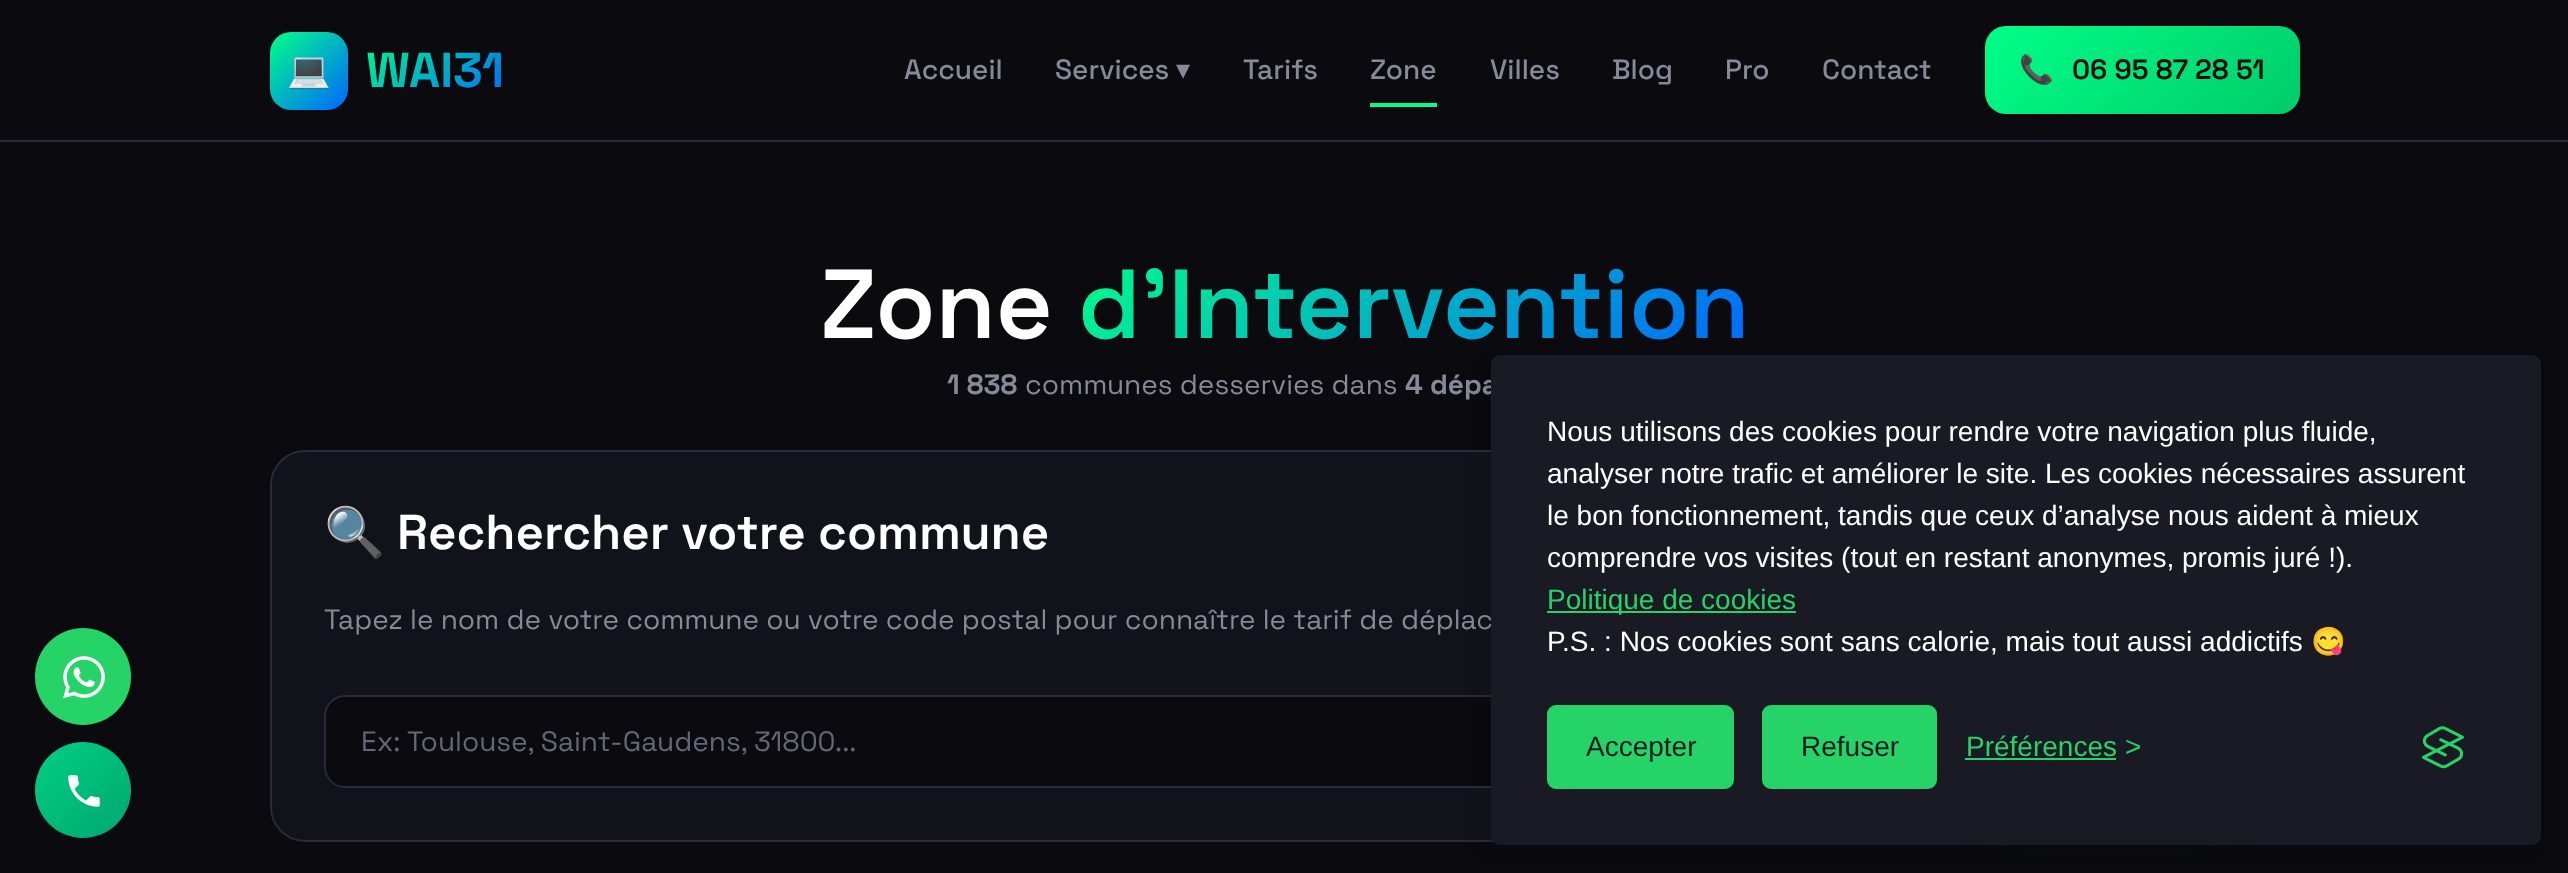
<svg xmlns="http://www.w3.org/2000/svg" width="2568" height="873">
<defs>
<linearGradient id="g1" gradientUnits="userSpaceOnUse" x1="381" y1="16" x2="489" y2="124"><stop offset="0" stop-color="#0f8"/><stop offset="1" stop-color="#06f"/></linearGradient>
<linearGradient id="g2" gradientUnits="userSpaceOnUse" x1="1214" y1="105" x2="1612" y2="503"><stop offset="0" stop-color="#0f8"/><stop offset="1" stop-color="#06f"/></linearGradient>
<linearGradient id="g3" gradientUnits="userSpaceOnUse" x1="270" y1="32" x2="348" y2="110"><stop offset="0" stop-color="#0f8"/><stop offset="1" stop-color="#06f"/></linearGradient>
<linearGradient id="g4" gradientUnits="userSpaceOnUse" x1="2041" y1="-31" x2="2243" y2="171"><stop offset="0" stop-color="#0f8"/><stop offset="1" stop-color="#00cc6a"/></linearGradient>
<linearGradient id="g5" gradientUnits="userSpaceOnUse" x1="35" y1="742" x2="131" y2="838"><stop offset="0" stop-color="#00d084"/><stop offset="1" stop-color="#00a66f"/></linearGradient>
</defs>
<rect width="100%" height="100%" fill="#0a0a0f"/>
<rect y="140" width="2568" height="2" fill="#2a2a3a"/>
<rect x="270" y="32" width="78" height="78" rx="21" fill="url(#g3)"/>
<text x="287" y="82" style="font-family:Noto Color Emoji;font-size:35px;font-weight:bold;fill:#fff">💻</text>
<text x="366" y="87" style="font-family:Space Grotesk;font-size:49px;font-weight:bold;fill:url(#g1)">WAI31</text>
<text x="904" y="79" style="font-family:Space Grotesk;font-size:28px;font-weight:500;fill:#889">Accueil</text>
<text x="1055" y="79" style="font-family:Space Grotesk;font-size:28px;font-weight:500;fill:#889">Services</text>
<text x="1176" y="79" style="font-family:DejaVu Sans;font-size:28px;fill:#889">▾</text>
<text x="1243" y="79" style="font-family:Space Grotesk;font-size:28px;font-weight:500;fill:#889">Tarifs</text>
<text x="1370" y="79" style="font-family:Space Grotesk;font-size:28px;font-weight:500;fill:#889">Zone</text>
<rect x="1370" y="103" width="67" height="4" fill="#0f8"/>
<text x="1490" y="79" style="font-family:Space Grotesk;font-size:28px;font-weight:500;fill:#889">Villes</text>
<text x="1612" y="79" style="font-family:Space Grotesk;font-size:28px;font-weight:500;fill:#889">Blog</text>
<text x="1725" y="79" style="font-family:Space Grotesk;font-size:28px;font-weight:500;fill:#889">Pro</text>
<text x="1822" y="79" style="font-family:Space Grotesk;font-size:28px;font-weight:500;fill:#889">Contact</text>
<rect x="1985" y="26" width="315" height="88" rx="21" fill="url(#g4)"/>
<text x="2019" y="79" style="font-family:Noto Color Emoji;font-size:28px;font-weight:bold;fill:#0a0a0f">📞</text>
<text x="2072" y="79" style="font-family:Space Grotesk;font-size:28px;font-weight:600;fill:#0a0a0f">06 95 87 28 51</text>
<rect x="35" y="628" width="96" height="97" rx="48" fill="#25d366"/>
<image x="63" y="656" width="42" height="42" href="media/1.png"/>
<circle cx="83" cy="790" r="48" fill="url(#g5)"/>
<image x="68" y="775" width="32" height="32" href="media/2.png"/>
<text x="820" y="338" style="font-family:Space Grotesk;font-size:98px;font-weight:600;fill:#fff">Zone</text>
<text x="1078" y="338" style="font-family:Space Grotesk;font-size:98px;font-weight:600;fill:url(#g2)">d'Intervention</text>
<text x="947" y="394" style="font-family:Space Grotesk;font-size:28px;font-weight:bold;fill:#889">1 838</text>
<text x="1025" y="394" style="font-family:Space Grotesk;font-size:28px;fill:#889">communes desservies dans</text>
<text x="1405" y="394" style="font-family:Space Grotesk;font-size:28px;font-weight:bold;fill:#889">4 dépa</text>
<rect x="271" y="451" width="2028" height="390" rx="34" fill="#12121a" stroke="#2a2a3a" stroke-width="2"/>
<text x="324" y="549" style="font-family:Noto Color Emoji;font-size:49px;font-weight:bold;fill:#fff">🔍</text>
<text x="397" y="549" style="font-family:Space Grotesk;font-size:49px;font-weight:600;fill:#fff">Rechercher votre commune</text>
<text x="324" y="629" style="font-family:Space Grotesk;font-size:28px;fill:#889">Tapez le nom de votre commune ou votre code postal pour connaître le tarif de déplac</text>
<rect x="325" y="696" width="1627" height="91" rx="20" fill="#0a0a0f" stroke="#2a2a3a" stroke-width="2"/>
<text x="361" y="751" style="font-family:Space Grotesk;font-size:28px;fill:#667">Ex: Toulouse, Saint-Gaudens, 31800...</text>
<rect x="1971" y="712" width="274" height="93" rx="46.5" fill="#00d08466" filter="blur(26px)"/>
<rect x="1482" y="364" width="1050" height="490" rx="9" fill="#00000012" filter="blur(9px)"/>
<rect x="1491" y="355" width="1050" height="490" rx="9" fill="#1a1a25"/>
<text x="1547" y="441" style="font-family:Liberation Sans;font-size:28px;fill:#fff">Nous utilisons des cookies pour rendre votre navigation plus fluide,</text>
<text x="1547" y="483" style="font-family:Liberation Sans;font-size:28px;fill:#fff">analyser notre trafic et améliorer le site. Les cookies nécessaires assurent</text>
<text x="1547" y="525" style="font-family:Liberation Sans;font-size:28px;fill:#fff">le bon fonctionnement, tandis que ceux d’analyse nous aident à mieux</text>
<text x="1547" y="567" style="font-family:Liberation Sans;font-size:28px;fill:#fff">comprendre vos visites (tout en restant anonymes, promis juré !).</text>
<rect x="1547" y="611" width="249" height="2" fill="#25d366"/>
<text x="1547" y="609" style="font-family:Liberation Sans;font-size:28px;fill:#25d366">Politique de cookies</text>
<text x="1547" y="651" style="font-family:Liberation Sans;font-size:28px;fill:#fff">P.S. : Nos cookies sont sans calorie, mais tout aussi addictifs</text>
<text x="2311" y="651" style="font-family:Noto Color Emoji;font-size:28px;fill:#fff">😋</text>
<rect x="1549" y="707" width="183" height="80" rx="7" fill="#25d366" stroke="#25d366" stroke-width="4"/>
<text x="1586" y="756" style="font-family:Liberation Sans;font-size:28px;fill:#1a1a25">Accepter</text>
<rect x="1764" y="707" width="171" height="80" rx="7" fill="#25d366" stroke="#25d366" stroke-width="4"/>
<text x="1801" y="756" style="font-family:Liberation Sans;font-size:28px;fill:#1a1a25">Refuser</text>
<text x="1966" y="756" style="font-family:Liberation Sans;font-size:28px;fill:#25d366">Préférences</text>
<rect x="1965" y="758" width="151" height="2" fill="#25d366"/>
<text x="2125" y="756" style="font-family:Liberation Sans;font-size:28px;fill:#25d366">&gt;</text>
<image x="2422" y="726" width="42" height="43" href="media/3.png"/>
</svg>
